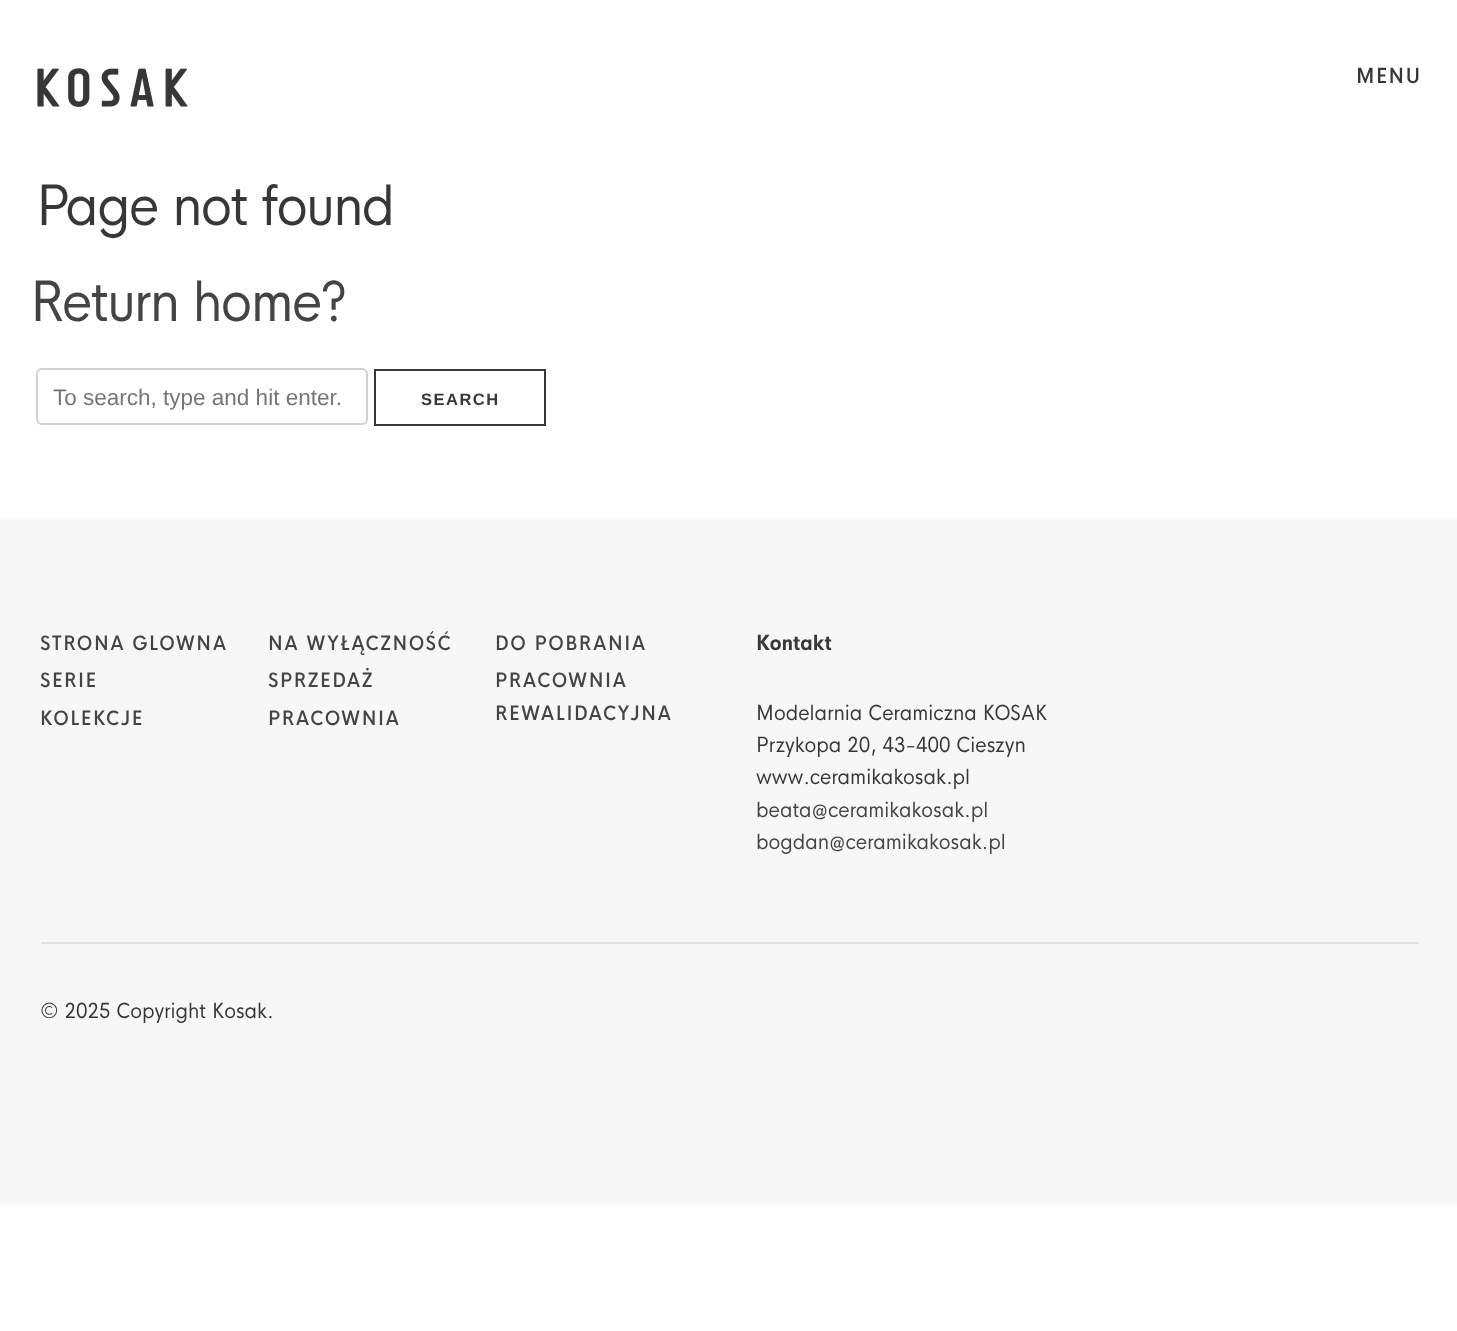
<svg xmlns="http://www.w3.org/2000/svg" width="1457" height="1331">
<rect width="100%" height="100%" fill="#fff"/>
<image x="37" y="68" width="151" height="39" href="media/1.png"/>
<text x="1356" y="83" style="font-family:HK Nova;font-size:20.25px;font-weight:500;letter-spacing:1.5px;fill:#343a33">MENU</text>
<text x="36" y="225" style="font-family:HK Nova;font-size:54px;letter-spacing:-1.5px;fill:#343a33">Page not found</text>
<text x="30" y="321" style="font-family:HK Nova;font-size:54px;letter-spacing:-1.5px;fill:#444">Return home?</text>
<rect x="37" y="369" width="330" height="55" rx="5" fill="none" stroke="#d1d1d1" stroke-width="2"/>
<text x="53" y="405" style="font-family:Liberation Sans;font-size:22.5px;fill:#757575">To search, type and hit enter.</text>
<rect x="375" y="370" width="170" height="55" fill="none" stroke="#343a33" stroke-width="2"/>
<text x="421" y="405" style="font-family:Liberation Sans;font-size:16.5px;font-weight:bold;letter-spacing:1.5px;fill:#343a33">SEARCH</text>
<rect y="519" width="1457" height="687" fill="#f7f7f7"/>
<text x="40" y="650" style="font-family:HK Nova;font-size:19.25px;font-weight:500;letter-spacing:1.5px;fill:#444">STRONA GLOWNA</text>
<text x="268" y="650" style="font-family:HK Nova;font-size:19.25px;font-weight:500;letter-spacing:1.5px;fill:#444">NA WYŁĄCZNOŚĆ</text>
<text x="495" y="650" style="font-family:HK Nova;font-size:19.25px;font-weight:500;letter-spacing:1.5px;fill:#444">DO POBRANIA</text>
<text x="40" y="687" style="font-family:HK Nova;font-size:19.25px;font-weight:500;letter-spacing:1.5px;fill:#444">SERIE</text>
<text x="268" y="687" style="font-family:HK Nova;font-size:19.25px;font-weight:500;letter-spacing:1.5px;fill:#444">SPRZEDAŻ</text>
<text x="495" y="687" style="font-family:HK Nova;font-size:19.25px;font-weight:500;letter-spacing:1.5px;fill:#444">PRACOWNIA</text>
<text x="495" y="720" style="font-family:HK Nova;font-size:19.25px;font-weight:500;letter-spacing:1.5px;fill:#444">REWALIDACYJNA</text>
<text x="40" y="725" style="font-family:HK Nova;font-size:19.25px;font-weight:500;letter-spacing:1.5px;fill:#444">KOLEKCJE</text>
<text x="268" y="725" style="font-family:HK Nova;font-size:19.25px;font-weight:500;letter-spacing:1.5px;fill:#444">PRACOWNIA</text>
<text x="756" y="650" style="font-family:HK Nova;font-size:20.25px;font-weight:bold;font-style:italic;fill:#343a33">Kontakt</text>
<text x="756" y="720" style="font-family:HK Nova;font-size:20.25px;fill:#343a33">Modelarnia Ceramiczna KOSAK</text>
<text x="756" y="752" style="font-family:HK Nova;font-size:20.25px;fill:#343a33">Przykopa 20, 43-400 Cieszyn</text>
<text x="756" y="784" style="font-family:HK Nova;font-size:20.25px;fill:#343a33">www.ceramikakosak.pl</text>
<text x="756" y="817" style="font-family:HK Nova;font-size:20.25px;fill:#444">beata@ceramikakosak.pl</text>
<text x="756" y="849" style="font-family:HK Nova;font-size:20.25px;fill:#444">bogdan@ceramikakosak.pl</text>
<rect x="41" y="942" width="1377" height="2" fill="#e1e1e1"/>
<text x="40" y="1018" style="font-family:HK Nova;font-size:20.25px;fill:#343a33">© 2025 Copyright Kosak.</text>
</svg>
